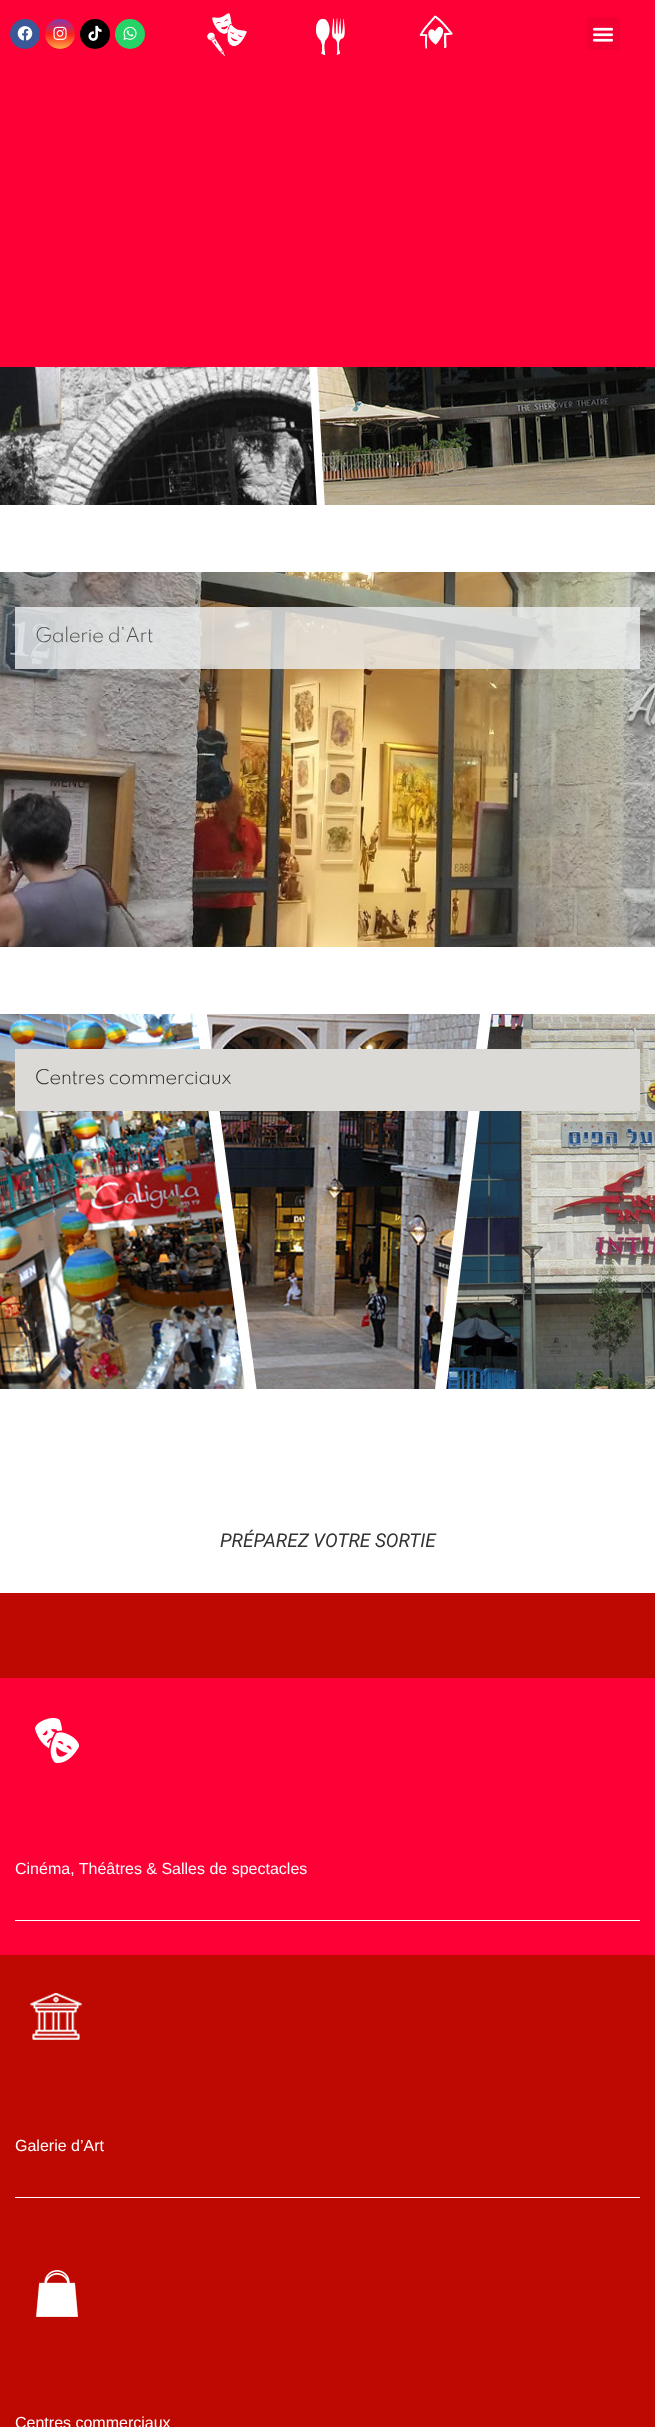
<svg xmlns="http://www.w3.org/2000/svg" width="655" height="2427">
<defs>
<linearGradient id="g1" gradientUnits="userSpaceOnUse" x1="60" y1="19" x2="60" y2="49"><stop offset="0" stop-color="#833ab4"/><stop offset="0.5" stop-color="#fd1d1d"/><stop offset="1" stop-color="#fcb045"/></linearGradient>
</defs>
<rect width="100%" height="100%" fill="#fff"/>
<rect width="655" height="367" fill="#ff0036"/>
<circle cx="25" cy="34" r="15" fill="#3b5998"/>
<image x="17" y="26" width="16" height="15" href="media/1.png"/>
<circle cx="60" cy="34" r="15" fill="url(#g1)"/>
<image x="53" y="26" width="14" height="14" href="media/2.png"/>
<circle cx="95" cy="34" r="15" fill="#000"/>
<image x="88" y="25" width="14" height="16" href="media/3.png"/>
<circle cx="130" cy="34" r="15" fill="#25d366"/>
<image x="123" y="26" width="14" height="14" href="media/4.png"/>
<image x="207" y="13" width="40" height="43" href="media/5.png"/>
<image x="315" y="18" width="38" height="38" href="media/6.png"/>
<image x="419" y="15" width="34" height="34" href="media/7.png"/>
<rect x="587" y="17" width="33" height="33" rx="3" fill="#f20033"/>
<image x="592" y="27" width="22" height="15" href="media/8.png"/>
<image x="0" y="367" width="655" height="138" href="media/9.png"/>
<image x="0" y="572" width="655" height="375" href="media/10.png"/>
<rect x="15" y="607" width="625" height="62" fill="#edf0f1cc"/>
<text x="35" y="642" style="font-family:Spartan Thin;font-size:18px;font-weight:300;letter-spacing:-0.5px;fill:#4a4b4b">Galerie d’Art</text>
<image x="0" y="1014" width="655" height="375" href="media/11.png"/>
<rect x="15" y="1049" width="625" height="62" fill="#dcdad6"/>
<text x="35" y="1084" style="font-family:Spartan Thin;font-size:18px;font-weight:300;letter-spacing:-0.5px;fill:#272727">Centres commerciaux</text>
<text x="220" y="1547" style="font-family:Roboto;font-size:19px;font-style:italic;fill:#333">PRÉPAREZ VOTRE SORTIE</text>
<rect y="1593" width="655" height="85" fill="#be0902"/>
<rect y="1678" width="655" height="277" fill="#ff0036"/>
<image x="35" y="1718" width="44" height="45" href="media/12.png"/>
<text x="15" y="1874" style="font-family:Liberation Sans;font-size:16px;fill:#fff">Cinéma, Théâtres &amp; Salles de spectacles</text>
<rect x="15" y="1920" width="625" height="1" fill="#fff"/>
<rect y="1955" width="655" height="472" fill="#be0902"/>
<image x="30" y="1993" width="52" height="47" href="media/13.png"/>
<text x="15" y="2151" style="font-family:Liberation Sans;font-size:16px;fill:#fff">Galerie d’Art</text>
<rect x="15" y="2197" width="625" height="1" fill="#fff"/>
<image x="36" y="2270" width="42" height="47" href="media/14.png"/>
<text x="15" y="2428" style="font-family:Liberation Sans;font-size:16px;fill:#fff">Centres commerciaux</text>
</svg>
